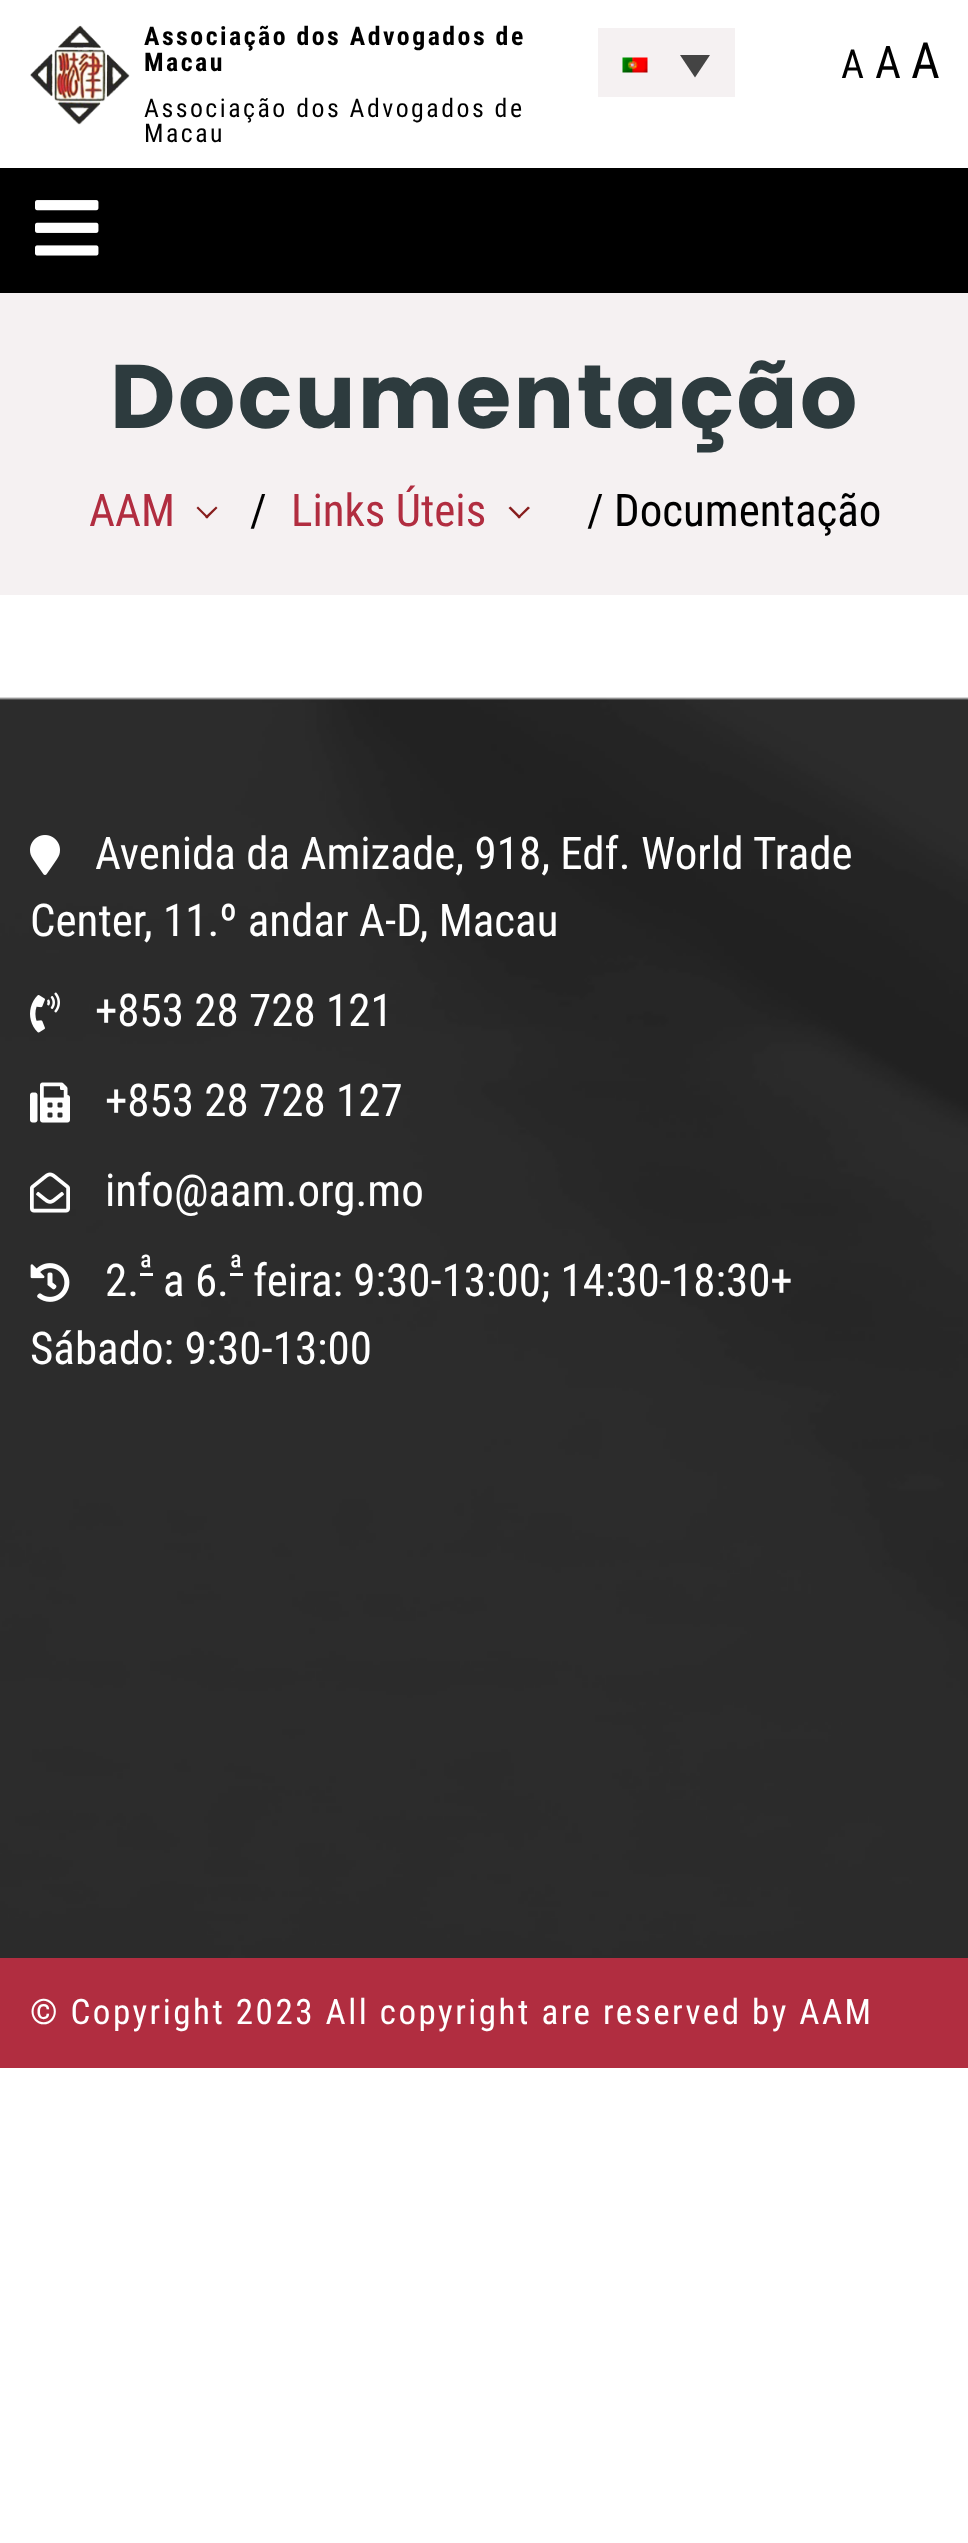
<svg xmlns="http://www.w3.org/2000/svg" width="968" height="2543">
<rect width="100%" height="100%" fill="#fff"/>
<image x="30" y="25" width="100" height="100" href="media/1.png"/>
<text x="144" y="45" style="font-family:Roboto Condensed;font-size:25.8px;font-weight:bold;letter-spacing:2.5px;fill:#000">Associação dos Advogados de</text>
<text x="144" y="71" style="font-family:Roboto Condensed;font-size:25.8px;font-weight:bold;letter-spacing:2.5px;fill:#000">Macau</text>
<text x="144" y="117" style="font-family:Roboto Condensed;font-size:25.8px;letter-spacing:2.5px;fill:#000">Associação dos Advogados de</text>
<text x="144" y="142" style="font-family:Roboto Condensed;font-size:25.8px;letter-spacing:2.5px;fill:#000">Macau</text>
<rect x="598" y="28" width="137" height="69" fill="#f5f1f2"/>
<image x="622" y="57" width="26" height="16" href="media/2.png"/>
<path d="M680 55h30l-15 22.5z" fill="#444"/>
<text x="841" y="78" style="font-family:Roboto Condensed;font-size:40px;fill:#000">A</text>
<text x="875" y="78" style="font-family:Roboto Condensed;font-size:45px;fill:#000">A</text>
<text x="911" y="78" style="font-family:Roboto Condensed;font-size:50px;fill:#000">A</text>
<rect y="168" width="968" height="125" fill="#000"/>
<image x="35" y="200" width="64" height="56" href="media/3.png"/>
<rect y="293" width="968" height="302" fill="#f5f1f2"/>
<text x="110" y="428" style="font-family:Poppins;font-size:90px;font-weight:bold;letter-spacing:2.5px;fill:#2d3b3e">Documentação</text>
<text x="89" y="526" style="font-family:Roboto Condensed;font-size:45px;fill:#b12d40">AAM</text>
<path d="M216 506.5l1.5 1.5l-10.5 10.5l-2-1.5z" fill="#871d1d"/>
<path d="M198 506.5l10.5 10.5l-1.5 1.5l-10.5-10.5z" fill="#871d1d"/>
<text x="250" y="526" style="font-family:Roboto Condensed;font-size:45px;fill:#000">/</text>
<text x="291" y="526" style="font-family:Roboto Condensed;font-size:45px;fill:#b12d40">Links Úteis</text>
<path d="M528 506.5l2 1.5l-11 10.5l-1.5-1.5z" fill="#871d1d"/>
<path d="M510.5 506.5l10.5 10.5l-2 1.5l-10.5-10.5z" fill="#871d1d"/>
<text x="587" y="526" style="font-family:Roboto Condensed;font-size:45px;fill:#000">/ Documentação</text>
<image x="0" y="697" width="968" height="1261" href="media/4.png"/>
<image x="30" y="835" width="30" height="40" href="media/5.png"/>
<text x="95" y="869" style="font-family:Roboto Condensed;font-size:45px;fill:#fff">Avenida da Amizade, 918, Edf. World Trade</text>
<text x="30" y="936" style="font-family:Roboto Condensed;font-size:45px;fill:#fff">Center, 11.º andar A-D, Macau</text>
<image x="30" y="992" width="30" height="41" href="media/6.png"/>
<text x="95" y="1026" style="font-family:Roboto Condensed;font-size:45px;fill:#fff">+853 28 728 121</text>
<image x="30" y="1082" width="40" height="41" href="media/7.png"/>
<text x="105" y="1116" style="font-family:Roboto Condensed;font-size:45px;fill:#fff">+853 28 728 127</text>
<image x="30" y="1172" width="40" height="41" href="media/8.png"/>
<text x="105" y="1206" style="font-family:Roboto Condensed;font-size:45px;fill:#fff">info@aam.org.mo</text>
<image x="30" y="1263" width="40" height="39" href="media/9.png"/>
<text x="105" y="1296" style="font-family:Roboto Condensed;font-size:45px;fill:#fff">2.</text>
<text x="139" y="1279" style="font-family:Roboto Condensed;font-size:34px;fill:#fff">ª</text>
<rect x="140" y="1273" width="13" height="3" fill="#fff"/>
<text x="163" y="1296" style="font-family:Roboto Condensed;font-size:45px;fill:#fff">a 6.</text>
<text x="229" y="1279" style="font-family:Roboto Condensed;font-size:34px;fill:#fff">ª</text>
<rect x="230" y="1273" width="13" height="3" fill="#fff"/>
<text x="253" y="1296" style="font-family:Roboto Condensed;font-size:45px;fill:#fff">feira: 9:30-13:00; 14:30-18:30+</text>
<text x="30" y="1364" style="font-family:Roboto Condensed;font-size:45px;fill:#fff">Sábado: 9:30-13:00</text>
<rect y="1958" width="968" height="110" fill="#b12d40"/>
<text x="30" y="2024" style="font-family:Roboto Condensed;font-size:35px;letter-spacing:2.5px;fill:#fff">© Copyright 2023 All copyright are reserved by AAM</text>
</svg>
